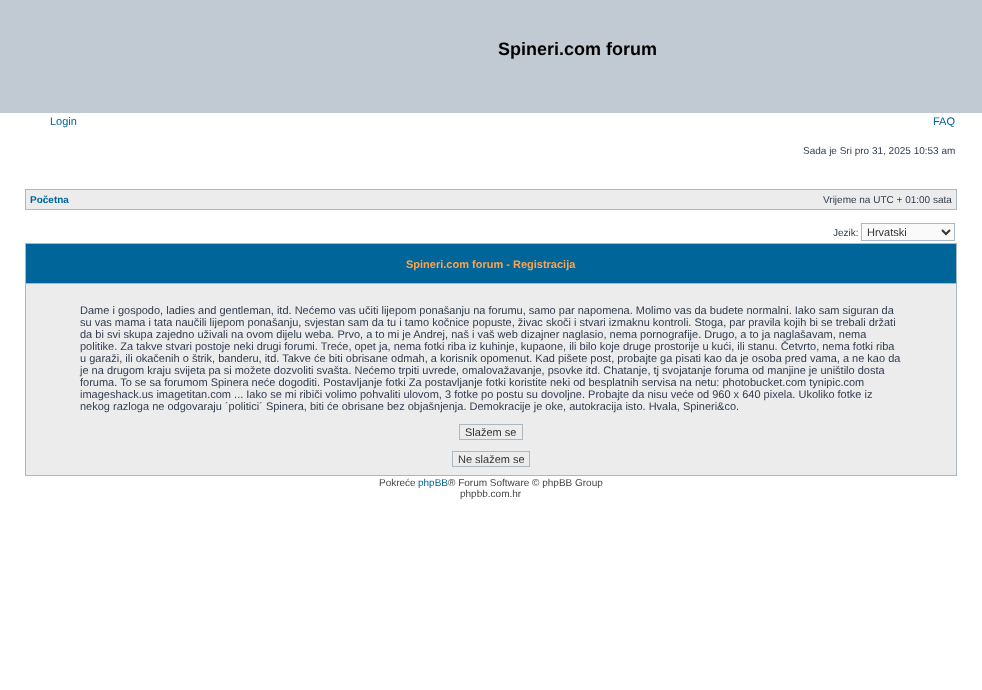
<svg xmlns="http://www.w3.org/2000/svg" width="982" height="690">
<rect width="100%" height="100%" fill="#fff"/>
<rect width="982" height="113" fill="#c1cad2"/>
<text x="498" y="55" style="font-family:Liberation Sans;font-size:18px;font-weight:bold;fill:#000">Spineri.com forum</text>
<text x="50" y="125" style="font-family:Liberation Sans;font-size:11px;fill:#006597">Login</text>
<text x="933" y="125" style="font-family:Liberation Sans;font-size:11px;fill:#006597">FAQ</text>
<text x="803" y="154" style="font-family:Liberation Sans;font-size:10px;fill:#323d4f">Sada je Sri pro 31, 2025 10:53 am</text>
<rect x="25" y="189" width="932" height="21" fill="#a9b8c2"/>
<rect x="26" y="190" width="930" height="19" fill="#ececec"/>
<text x="30" y="203" style="font-family:Liberation Sans;font-size:10px;font-weight:bold;fill:#006597">Početna</text>
<text x="823" y="203" style="font-family:Liberation Sans;font-size:10px;fill:#323d4f">Vrijeme na UTC + 01:00 sata</text>
<text x="833" y="236" style="font-family:Liberation Sans;font-size:10px;fill:#323d4f">Jezik:</text>
<rect x="861.5" y="223.5" width="93" height="17" fill="#fafafa" stroke="#a9b8c2"/>
<path d="M942 230l4 4l4-4" fill="none" stroke="#333" stroke-width="2"/>
<text x="867" y="236" style="font-family:Liberation Sans;font-size:11px;fill:#333">Hrvatski</text>
<rect x="25" y="243" width="932" height="233" fill="#a9b8c2"/>
<rect x="26" y="244" width="930" height="39" fill="#069"/>
<text x="406" y="268" style="font-family:Liberation Sans;font-size:11px;font-weight:bold;fill:#ffa34f">Spineri.com forum - Registracija</text>
<rect x="26" y="284" width="930" height="191" fill="#ececec"/>
<text x="80" y="314" style="font-family:Liberation Sans;font-size:11px;fill:#323d4f">Dame i gospodo, ladies and gentleman, itd. Nećemo vas učiti lijepom ponašanju na forumu, samo par napomena. Molimo vas da budete normalni. Iako sam siguran da</text>
<text x="80" y="326" style="font-family:Liberation Sans;font-size:11px;fill:#323d4f">su vas mama i tata naučili lijepom ponašanju, svjestan sam da tu i tamo kočnice popuste, živac skoči i stvari izmaknu kontroli. Stoga, par pravila kojih bi se trebali držati</text>
<text x="80" y="338" style="font-family:Liberation Sans;font-size:11px;fill:#323d4f">da bi svi skupa zajedno uživali na ovom dijelu weba. Prvo, a to mi je Andrej, naš i vaš web dizajner naglasio, nema pornografije. Drugo, a to ja naglašavam, nema</text>
<text x="80" y="350" style="font-family:Liberation Sans;font-size:11px;fill:#323d4f">politike. Za takve stvari postoje neki drugi forumi. Treće, opet ja, nema fotki riba iz kuhinje, kupaone, ili bilo koje druge prostorije u kući, ili stanu. Četvrto, nema fotki riba</text>
<text x="80" y="362" style="font-family:Liberation Sans;font-size:11px;fill:#323d4f">u garaži, ili okačenih o štrik, banderu, itd. Takve će biti obrisane odmah, a korisnik opomenut. Kad pišete post, probajte ga pisati kao da je osoba pred vama, a ne kao da</text>
<text x="80" y="374" style="font-family:Liberation Sans;font-size:11px;fill:#323d4f">je na drugom kraju svijeta pa si možete dozvoliti svašta. Nećemo trpiti uvrede, omalovažavanje, psovke itd. Chatanje, tj svojatanje foruma od manjine je uništilo dosta</text>
<text x="80" y="386" style="font-family:Liberation Sans;font-size:11px;fill:#323d4f">foruma. To se sa forumom Spinera neće dogoditi. Postavljanje fotki Za postavljanje fotki koristite neki od besplatnih servisa na netu: photobucket.com tynipic.com</text>
<text x="80" y="398" style="font-family:Liberation Sans;font-size:11px;fill:#323d4f">imageshack.us imagetitan.com ... Iako se mi ribiči volimo pohvaliti ulovom, 3 fotke po postu su dovoljne. Probajte da nisu veće od 960 x 640 pixela. Ukoliko fotke iz</text>
<text x="80" y="410" style="font-family:Liberation Sans;font-size:11px;fill:#323d4f">nekog razloga ne odgovaraju ´politici´ Spinera, biti će obrisane bez objašnjenja. Demokracije je oke, autokracija isto. Hvala, Spineri&amp;co.</text>
<rect x="459.5" y="424.5" width="63" height="15" fill="none" stroke="#a9b8c2"/>
<text x="465" y="436" style="font-family:Liberation Sans;font-size:11px;fill:#333">Slažem se</text>
<rect x="452.5" y="451.5" width="77" height="15" fill="none" stroke="#a9b8c2"/>
<text x="458" y="463" style="font-family:Liberation Sans;font-size:11px;fill:#333">Ne slažem se</text>
<text x="379" y="486" style="font-family:Liberation Sans;font-size:10px;fill:#444">Pokreće</text>
<text x="418" y="486" style="font-family:Liberation Sans;font-size:10px;fill:#006597">phpBB</text>
<text x="448" y="486" style="font-family:Liberation Sans;font-size:10px;fill:#444">® Forum Software © phpBB Group</text>
<text x="460" y="497" style="font-family:Liberation Sans;font-size:10px;fill:#444">phpbb.com.hr</text>
</svg>
